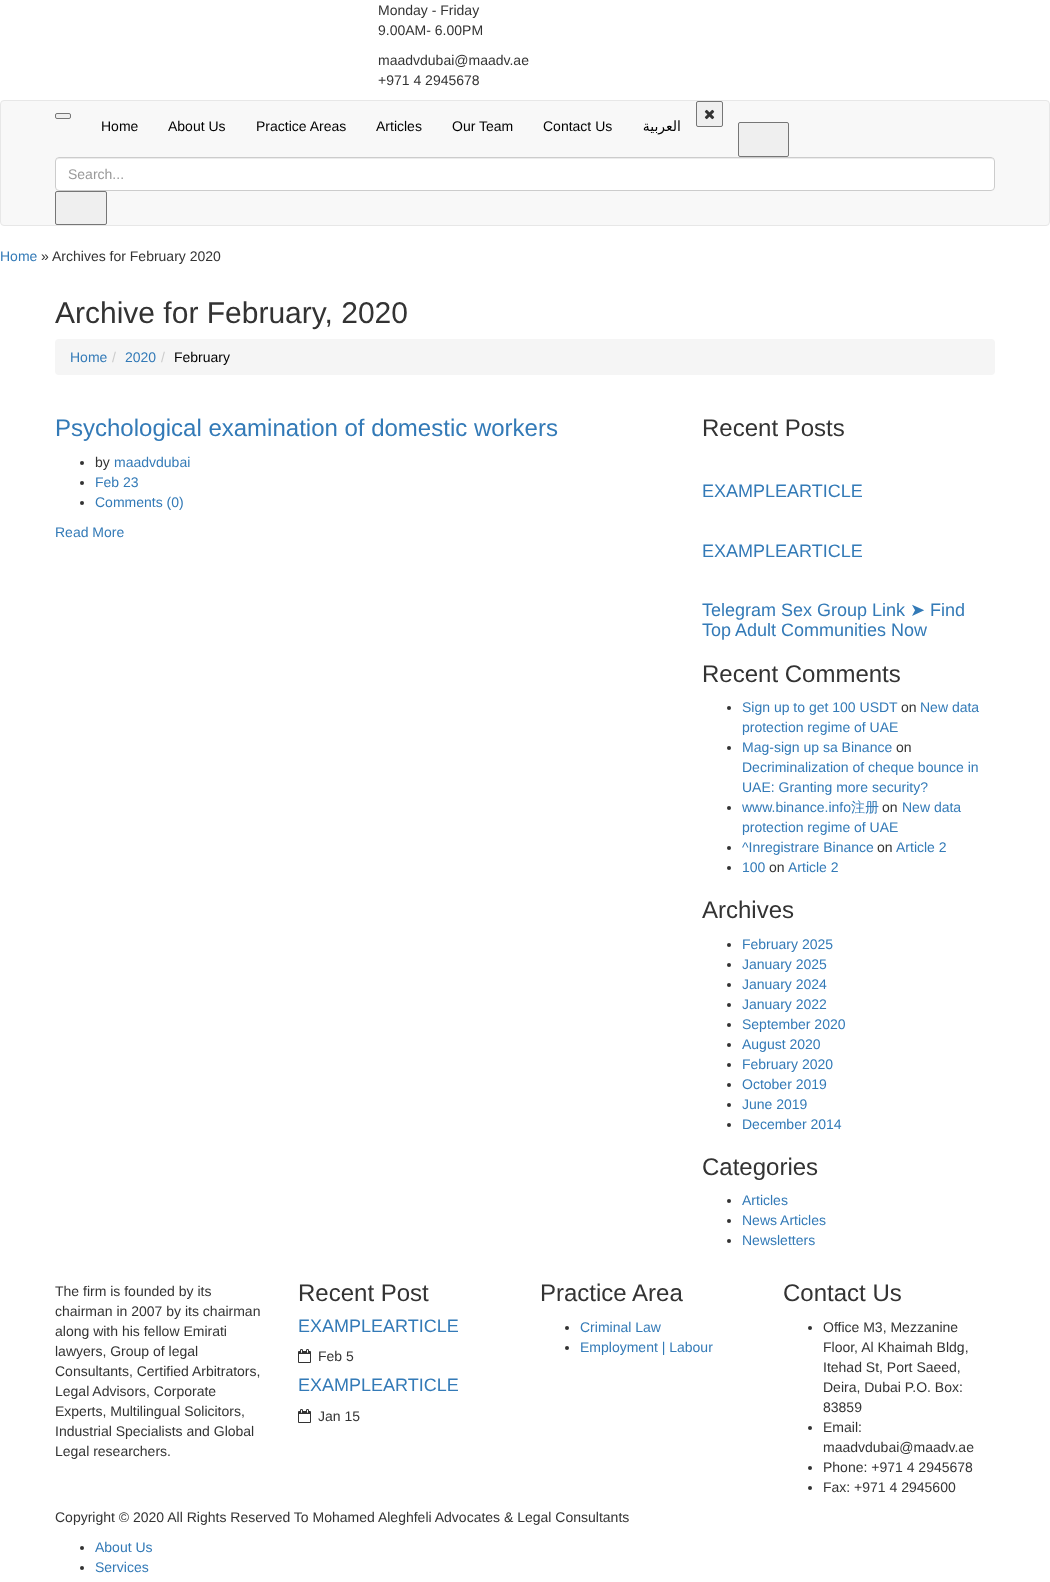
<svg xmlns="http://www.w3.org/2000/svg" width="1050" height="1582">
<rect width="100%" height="100%" fill="#fff"/>
<text x="378" y="15" style="font-family:Liberation Sans;font-size:14px;fill:#333">Monday - Friday</text>
<text x="378" y="35" style="font-family:Liberation Sans;font-size:14px;fill:#333">9.00AM- 6.00PM</text>
<text x="378" y="65" style="font-family:Liberation Sans;font-size:14px;fill:#333">maadvdubai@maadv.ae</text>
<text x="378" y="85" style="font-family:Liberation Sans;font-size:14px;fill:#333">+971 4 2945678</text>
<rect x="0.5" y="100.5" width="1049" height="125" rx="3.5" fill="#f8f8f8" stroke="#e7e7e7"/>
<rect x="55.5" y="113.5" width="15" height="5" rx="1.5" fill="#efefef" stroke="#767676"/>
<text x="101" y="131" style="font-family:Liberation Sans;font-size:14px;fill:#000">Home</text>
<text x="168" y="131" style="font-family:Liberation Sans;font-size:14px;fill:#000">About Us</text>
<text x="256" y="131" style="font-family:Liberation Sans;font-size:14px;fill:#000">Practice Areas</text>
<text x="376" y="131" style="font-family:Liberation Sans;font-size:14px;fill:#000">Articles</text>
<text x="452" y="131" style="font-family:Liberation Sans;font-size:14px;fill:#000">Our Team</text>
<text x="543" y="131" style="font-family:Liberation Sans;font-size:14px;fill:#000">Contact Us</text>
<text x="681" y="131" style="font-family:DejaVu Sans;font-size:14px;direction:rtl;fill:#000">العربية</text>
<rect x="696.5" y="101.5" width="26" height="25" rx="1.5" fill="#efefef" stroke="#767676"/>
<image x="704" y="109" width="11" height="11" href="media/1.png"/>
<rect x="738.5" y="122.5" width="50" height="34" rx="1.5" fill="#efefef" stroke="#767676"/>
<rect x="55" y="157" width="940" height="34" rx="4" fill="#fff"/>
<path d="M59 159h932c2 0 3 1 3 3c0-2-1-4-3-4h-932c-2 0-3 2-3 4c0-2 1-3 3-3z" fill="#ececec"/>
<rect x="55.5" y="157.5" width="939" height="33" rx="3.5" fill="none" stroke="#ccc"/>
<text x="68" y="179" style="font-family:Liberation Sans;font-size:14px;fill:#999">Search...</text>
<rect x="55.5" y="191.5" width="51" height="33" rx="1.5" fill="#efefef" stroke="#767676"/>
<text x="0" y="261" style="font-family:Liberation Sans;font-size:14px;fill:#337ab7">Home</text>
<text x="41" y="261" style="font-family:Liberation Sans;font-size:14px;fill:#333">»</text>
<text x="52" y="261" style="font-family:Liberation Sans;font-size:14px;fill:#333">Archives for February 2020</text>
<text x="55" y="323" style="font-family:Liberation Sans;font-size:30px;fill:#333">Archive for February, 2020</text>
<rect x="55" y="339" width="940" height="36" rx="4" fill="#f5f5f5"/>
<text x="70" y="362" style="font-family:Liberation Sans;font-size:14px;fill:#337ab7">Home</text>
<text x="112" y="362" style="font-family:Liberation Sans;font-size:14px;fill:#ccc">/</text>
<text x="125" y="362" style="font-family:Liberation Sans;font-size:14px;fill:#337ab7">2020</text>
<text x="161" y="362" style="font-family:Liberation Sans;font-size:14px;fill:#ccc">/</text>
<text x="174" y="362" style="font-family:Liberation Sans;font-size:14px;fill:#000">February</text>
<text x="55" y="436" style="font-family:Liberation Sans;font-size:24px;fill:#337ab7">Psychological examination of domestic workers</text>
<circle cx="82" cy="463" r="2" fill="#333"/>
<text x="95" y="467" style="font-family:Liberation Sans;font-size:14px;fill:#333">by</text>
<text x="114" y="467" style="font-family:Liberation Sans;font-size:14px;fill:#337ab7">maadvdubai</text>
<circle cx="82" cy="483" r="2" fill="#333"/>
<text x="95" y="487" style="font-family:Liberation Sans;font-size:14px;fill:#337ab7">Feb 23</text>
<circle cx="82" cy="503" r="2" fill="#333"/>
<text x="95" y="507" style="font-family:Liberation Sans;font-size:14px;fill:#337ab7">Comments (0)</text>
<text x="55" y="537" style="font-family:Liberation Sans;font-size:14px;fill:#337ab7">Read More</text>
<text x="702" y="436" style="font-family:Liberation Sans;font-size:24px;fill:#333">Recent Posts</text>
<text x="702" y="497" style="font-family:Liberation Sans;font-size:18px;fill:#337ab7">EXAMPLEARTICLE</text>
<text x="702" y="557" style="font-family:Liberation Sans;font-size:18px;fill:#337ab7">EXAMPLEARTICLE</text>
<text x="702" y="616" style="font-family:Liberation Sans;font-size:18px;fill:#337ab7">Telegram Sex Group Link</text>
<text x="910" y="616" style="font-family:DejaVu Sans;font-size:18px;fill:#337ab7">➤</text>
<text x="930" y="616" style="font-family:Liberation Sans;font-size:18px;fill:#337ab7">Find</text>
<text x="702" y="636" style="font-family:Liberation Sans;font-size:18px;fill:#337ab7">Top Adult Communities Now</text>
<text x="702" y="682" style="font-family:Liberation Sans;font-size:24px;fill:#333">Recent Comments</text>
<circle cx="729" cy="708" r="2" fill="#333"/>
<text x="742" y="712" style="font-family:Liberation Sans;font-size:14px;fill:#337ab7">Sign up to get 100 USDT</text>
<text x="901" y="712" style="font-family:Liberation Sans;font-size:14px;fill:#333">on</text>
<text x="920" y="712" style="font-family:Liberation Sans;font-size:14px;fill:#337ab7">New data</text>
<text x="742" y="732" style="font-family:Liberation Sans;font-size:14px;fill:#337ab7">protection regime of UAE</text>
<circle cx="729" cy="748" r="2" fill="#333"/>
<text x="742" y="752" style="font-family:Liberation Sans;font-size:14px;fill:#337ab7">Mag-sign up sa Binance</text>
<text x="896" y="752" style="font-family:Liberation Sans;font-size:14px;fill:#333">on</text>
<text x="742" y="772" style="font-family:Liberation Sans;font-size:14px;fill:#337ab7">Decriminalization of cheque bounce in</text>
<text x="742" y="792" style="font-family:Liberation Sans;font-size:14px;fill:#337ab7">UAE: Granting more security?</text>
<circle cx="729" cy="808" r="2" fill="#333"/>
<text x="742" y="812" style="font-family:Liberation Sans;font-size:14px;fill:#337ab7">www.binance.info</text>
<text x="851" y="812" style="font-family:WenQuanYi Zen Hei;font-size:14px;font-weight:500;fill:#337ab7">注册</text>
<text x="882" y="812" style="font-family:Liberation Sans;font-size:14px;fill:#333">on</text>
<text x="902" y="812" style="font-family:Liberation Sans;font-size:14px;fill:#337ab7">New data</text>
<text x="742" y="832" style="font-family:Liberation Sans;font-size:14px;fill:#337ab7">protection regime of UAE</text>
<circle cx="729" cy="848" r="2" fill="#333"/>
<text x="742" y="852" style="font-family:Liberation Sans;font-size:14px;fill:#337ab7">^Inregistrare Binance</text>
<text x="877" y="852" style="font-family:Liberation Sans;font-size:14px;fill:#333">on</text>
<text x="896" y="852" style="font-family:Liberation Sans;font-size:14px;fill:#337ab7">Article 2</text>
<circle cx="729" cy="868" r="2" fill="#333"/>
<text x="742" y="872" style="font-family:Liberation Sans;font-size:14px;fill:#337ab7">100</text>
<text x="769" y="872" style="font-family:Liberation Sans;font-size:14px;fill:#333">on</text>
<text x="788" y="872" style="font-family:Liberation Sans;font-size:14px;fill:#337ab7">Article 2</text>
<text x="702" y="918" style="font-family:Liberation Sans;font-size:24px;fill:#333">Archives</text>
<circle cx="729" cy="945" r="2" fill="#333"/>
<text x="742" y="949" style="font-family:Liberation Sans;font-size:14px;fill:#337ab7">February 2025</text>
<circle cx="729" cy="965" r="2" fill="#333"/>
<text x="742" y="969" style="font-family:Liberation Sans;font-size:14px;fill:#337ab7">January 2025</text>
<circle cx="729" cy="985" r="2" fill="#333"/>
<text x="742" y="989" style="font-family:Liberation Sans;font-size:14px;fill:#337ab7">January 2024</text>
<circle cx="729" cy="1005" r="2" fill="#333"/>
<text x="742" y="1009" style="font-family:Liberation Sans;font-size:14px;fill:#337ab7">January 2022</text>
<circle cx="729" cy="1025" r="2" fill="#333"/>
<text x="742" y="1029" style="font-family:Liberation Sans;font-size:14px;fill:#337ab7">September 2020</text>
<circle cx="729" cy="1045" r="2" fill="#333"/>
<text x="742" y="1049" style="font-family:Liberation Sans;font-size:14px;fill:#337ab7">August 2020</text>
<circle cx="729" cy="1065" r="2" fill="#333"/>
<text x="742" y="1069" style="font-family:Liberation Sans;font-size:14px;fill:#337ab7">February 2020</text>
<circle cx="729" cy="1085" r="2" fill="#333"/>
<text x="742" y="1089" style="font-family:Liberation Sans;font-size:14px;fill:#337ab7">October 2019</text>
<circle cx="729" cy="1105" r="2" fill="#333"/>
<text x="742" y="1109" style="font-family:Liberation Sans;font-size:14px;fill:#337ab7">June 2019</text>
<circle cx="729" cy="1125" r="2" fill="#333"/>
<text x="742" y="1129" style="font-family:Liberation Sans;font-size:14px;fill:#337ab7">December 2014</text>
<text x="702" y="1175" style="font-family:Liberation Sans;font-size:24px;fill:#333">Categories</text>
<circle cx="729" cy="1201" r="2" fill="#333"/>
<text x="742" y="1205" style="font-family:Liberation Sans;font-size:14px;fill:#337ab7">Articles</text>
<circle cx="729" cy="1221" r="2" fill="#333"/>
<text x="742" y="1225" style="font-family:Liberation Sans;font-size:14px;fill:#337ab7">News Articles</text>
<circle cx="729" cy="1241" r="2" fill="#333"/>
<text x="742" y="1245" style="font-family:Liberation Sans;font-size:14px;fill:#337ab7">Newsletters</text>
<text x="55" y="1296" style="font-family:Liberation Sans;font-size:14px;fill:#333">The firm is founded by its</text>
<text x="55" y="1316" style="font-family:Liberation Sans;font-size:14px;fill:#333">chairman in 2007 by its chairman</text>
<text x="55" y="1336" style="font-family:Liberation Sans;font-size:14px;fill:#333">along with his fellow Emirati</text>
<text x="55" y="1356" style="font-family:Liberation Sans;font-size:14px;fill:#333">lawyers, Group of legal</text>
<text x="55" y="1376" style="font-family:Liberation Sans;font-size:14px;fill:#333">Consultants, Certified Arbitrators,</text>
<text x="55" y="1396" style="font-family:Liberation Sans;font-size:14px;fill:#333">Legal Advisors, Corporate</text>
<text x="55" y="1416" style="font-family:Liberation Sans;font-size:14px;fill:#333">Experts, Multilingual Solicitors,</text>
<text x="55" y="1436" style="font-family:Liberation Sans;font-size:14px;fill:#333">Industrial Specialists and Global</text>
<text x="55" y="1456" style="font-family:Liberation Sans;font-size:14px;fill:#333">Legal researchers.</text>
<text x="298" y="1301" style="font-family:Liberation Sans;font-size:24px;fill:#333">Recent Post</text>
<text x="298" y="1332" style="font-family:Liberation Sans;font-size:18px;fill:#337ab7">EXAMPLEARTICLE</text>
<image x="298" y="1349" width="13" height="14" href="media/2.png"/>
<text x="318" y="1361" style="font-family:Liberation Sans;font-size:14px;fill:#333">Feb 5</text>
<text x="298" y="1391" style="font-family:Liberation Sans;font-size:18px;fill:#337ab7">EXAMPLEARTICLE</text>
<image x="298" y="1409" width="13" height="14" href="media/2.png"/>
<text x="318" y="1421" style="font-family:Liberation Sans;font-size:14px;fill:#333">Jan 15</text>
<text x="540" y="1301" style="font-family:Liberation Sans;font-size:24px;fill:#333">Practice Area</text>
<circle cx="567" cy="1328" r="2" fill="#333"/>
<text x="580" y="1332" style="font-family:Liberation Sans;font-size:14px;fill:#337ab7">Criminal Law</text>
<circle cx="567" cy="1348" r="2" fill="#333"/>
<text x="580" y="1352" style="font-family:Liberation Sans;font-size:14px;fill:#337ab7">Employment | Labour</text>
<text x="783" y="1301" style="font-family:Liberation Sans;font-size:24px;fill:#333">Contact Us</text>
<circle cx="810" cy="1328" r="2" fill="#333"/>
<text x="823" y="1332" style="font-family:Liberation Sans;font-size:14px;fill:#333">Office M3, Mezzanine</text>
<text x="823" y="1352" style="font-family:Liberation Sans;font-size:14px;fill:#333">Floor, Al Khaimah Bldg,</text>
<text x="823" y="1372" style="font-family:Liberation Sans;font-size:14px;fill:#333">Itehad St, Port Saeed,</text>
<text x="823" y="1392" style="font-family:Liberation Sans;font-size:14px;fill:#333">Deira, Dubai P.O. Box:</text>
<text x="823" y="1412" style="font-family:Liberation Sans;font-size:14px;fill:#333">83859</text>
<circle cx="810" cy="1428" r="2" fill="#333"/>
<text x="823" y="1432" style="font-family:Liberation Sans;font-size:14px;fill:#333">Email:</text>
<text x="823" y="1452" style="font-family:Liberation Sans;font-size:14px;fill:#333">maadvdubai@maadv.ae</text>
<circle cx="810" cy="1468" r="2" fill="#333"/>
<text x="823" y="1472" style="font-family:Liberation Sans;font-size:14px;fill:#333">Phone: +971 4 2945678</text>
<circle cx="810" cy="1488" r="2" fill="#333"/>
<text x="823" y="1492" style="font-family:Liberation Sans;font-size:14px;fill:#333">Fax: +971 4 2945600</text>
<text x="55" y="1522" style="font-family:Liberation Sans;font-size:14px;fill:#333">Copyright © 2020 All Rights Reserved To Mohamed Aleghfeli Advocates &amp; Legal Consultants</text>
<circle cx="82" cy="1548" r="2" fill="#333"/>
<text x="95" y="1552" style="font-family:Liberation Sans;font-size:14px;fill:#337ab7">About Us</text>
<circle cx="82" cy="1568" r="2" fill="#333"/>
<text x="95" y="1572" style="font-family:Liberation Sans;font-size:14px;fill:#337ab7">Services</text>
</svg>
